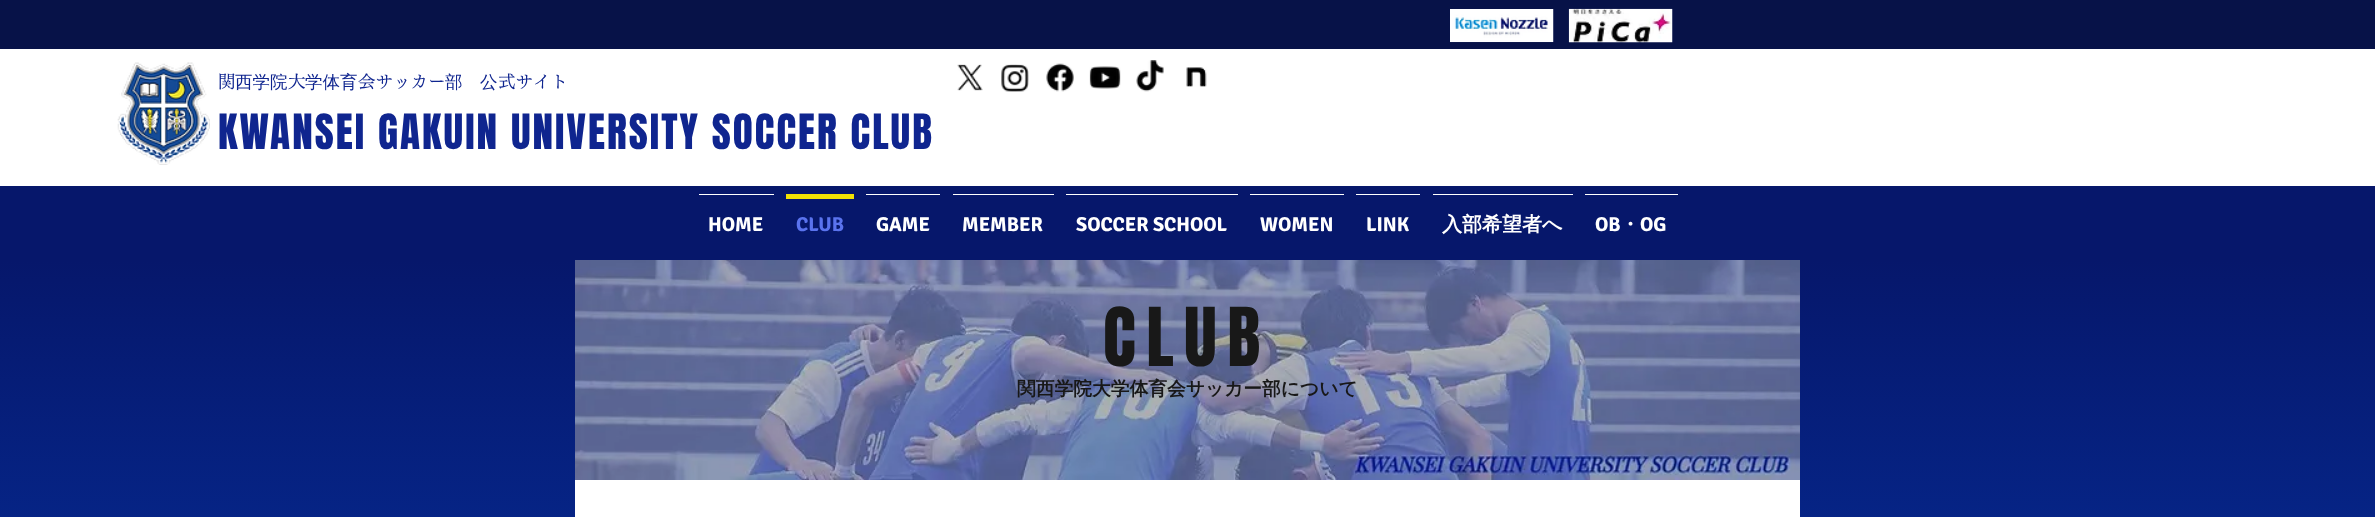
<svg xmlns="http://www.w3.org/2000/svg" width="2375" height="517">
<defs>
<linearGradient id="g1" gradientUnits="userSpaceOnUse" x1="1188" y1="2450" x2="1187" y2="260"><stop offset="0" stop-color="#0f258f"/><stop offset="0.49" stop-color="#054edc"/><stop offset="1" stop-color="#06176b"/></linearGradient>
</defs>
<rect width="100%" height="100%" fill="#fff"/>
<rect width="2375" height="49" fill="#071248"/>
<image x="1450" y="9" width="104" height="34" href="media/1.png"/>
<image x="1568" y="8" width="105" height="35" href="media/2.png"/>
<image x="117" y="62" width="93" height="103" href="media/3.png"/>
<text x="218" y="88" style="font-family:'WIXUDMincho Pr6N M';font-size:17.5px;font-weight:500;fill:#0f258f">関</text>
<text x="235" y="88" style="font-family:WenQuanYi Zen Hei;font-size:17.5px;font-weight:500;fill:#0f258f">西学院</text>
<text x="288" y="88" style="font-family:'WIXUDMincho Pr6N M';font-size:17.5px;font-weight:500;fill:#0f258f">大</text>
<text x="305" y="88" style="font-family:WenQuanYi Zen Hei;font-size:17.5px;font-weight:500;fill:#0f258f">学体育</text>
<text x="358" y="88" style="font-family:'WIXUDMincho Pr6N M';font-size:17.5px;font-weight:500;fill:#0f258f">会サッカー</text>
<text x="445" y="88" style="font-family:WenQuanYi Zen Hei;font-size:17.5px;font-weight:500;fill:#0f258f">部　公</text>
<text x="498" y="88" style="font-family:'WIXUDMincho Pr6N M';font-size:17.5px;font-weight:500;fill:#0f258f">式サイト</text>
<image x="957" y="64" width="26" height="27" href="media/4.png"/>
<image x="1001" y="64" width="28" height="28" href="media/5.png"/>
<image x="1046" y="63" width="28" height="29" href="media/6.png"/>
<image x="1089" y="66" width="32" height="23" href="media/7.png"/>
<image x="1136" y="60" width="28" height="32" href="media/8.png"/>
<image x="1186" y="67" width="21" height="20" href="media/9.png"/>
<text x="218" y="149" style="font-family:Anton;font-size:41.25px;letter-spacing:2.05px;fill:#0f258f">KWANSEI GAKUIN UNIVERSITY SOCCER CLUB</text>
<rect y="186" width="2375" height="74" fill="#06176b"/>
<rect x="699" y="194" width="75" height="1" fill="#fff"/>
<text x="708" y="231" style="font-family:Signika;font-size:20px;font-weight:bold;fill:#fff">HOME</text>
<rect x="786" y="194" width="68" height="5" fill="#f2e205"/>
<text x="796" y="231" style="font-family:Signika;font-size:20px;font-weight:bold;fill:#5a73ee">CLUB</text>
<rect x="866" y="194" width="74" height="1" fill="#fff"/>
<text x="876" y="231" style="font-family:Signika;font-size:20px;font-weight:bold;fill:#fff">GAME</text>
<rect x="953" y="194" width="101" height="1" fill="#fff"/>
<text x="962" y="231" style="font-family:Signika;font-size:20px;font-weight:bold;fill:#fff">MEMBER</text>
<rect x="1066" y="194" width="172" height="1" fill="#fff"/>
<text x="1076" y="231" style="font-family:Signika;font-size:20px;font-weight:bold;fill:#fff">SOCCER SCHOOL</text>
<rect x="1250" y="194" width="94" height="1" fill="#fff"/>
<text x="1260" y="231" style="font-family:Signika;font-size:20px;font-weight:bold;fill:#fff">WOMEN</text>
<rect x="1356" y="194" width="64" height="1" fill="#fff"/>
<text x="1366" y="231" style="font-family:Signika;font-size:20px;font-weight:bold;fill:#fff">LINK</text>
<rect x="1433" y="194" width="140" height="1" fill="#fff"/>
<text x="1442" y="231" style="font-family:WenQuanYi Zen Hei;font-size:20px;font-weight:bold;fill:#fff">入部希望者へ</text>
<rect x="1585" y="194" width="93" height="1" fill="#fff"/>
<text x="1595" y="231" style="font-family:Signika;font-size:20px;font-weight:bold;fill:#fff">OB</text>
<text x="1620" y="231" style="font-family:WenQuanYi Zen Hei;font-size:20px;font-weight:bold;fill:#fff">・</text>
<text x="1640" y="231" style="font-family:Signika;font-size:20px;font-weight:bold;fill:#fff">OG</text>
<rect y="260" width="2375" height="257" fill="url(#g1)"/>
<image x="575" y="260" width="1225" height="220" href="media/10.png"/>
<text x="1103" y="366" style="font-family:Anton;font-size:69px;letter-spacing:10.5px;fill:#181818">CLUB</text>
<text x="1017" y="395" style="font-family:WenQuanYi Zen Hei;font-size:18.75px;font-weight:bold;fill:#181818">関西学院大学体育会サッカー部について</text>
<rect x="575" y="480" width="1225" height="37" fill="#fff"/>
</svg>
